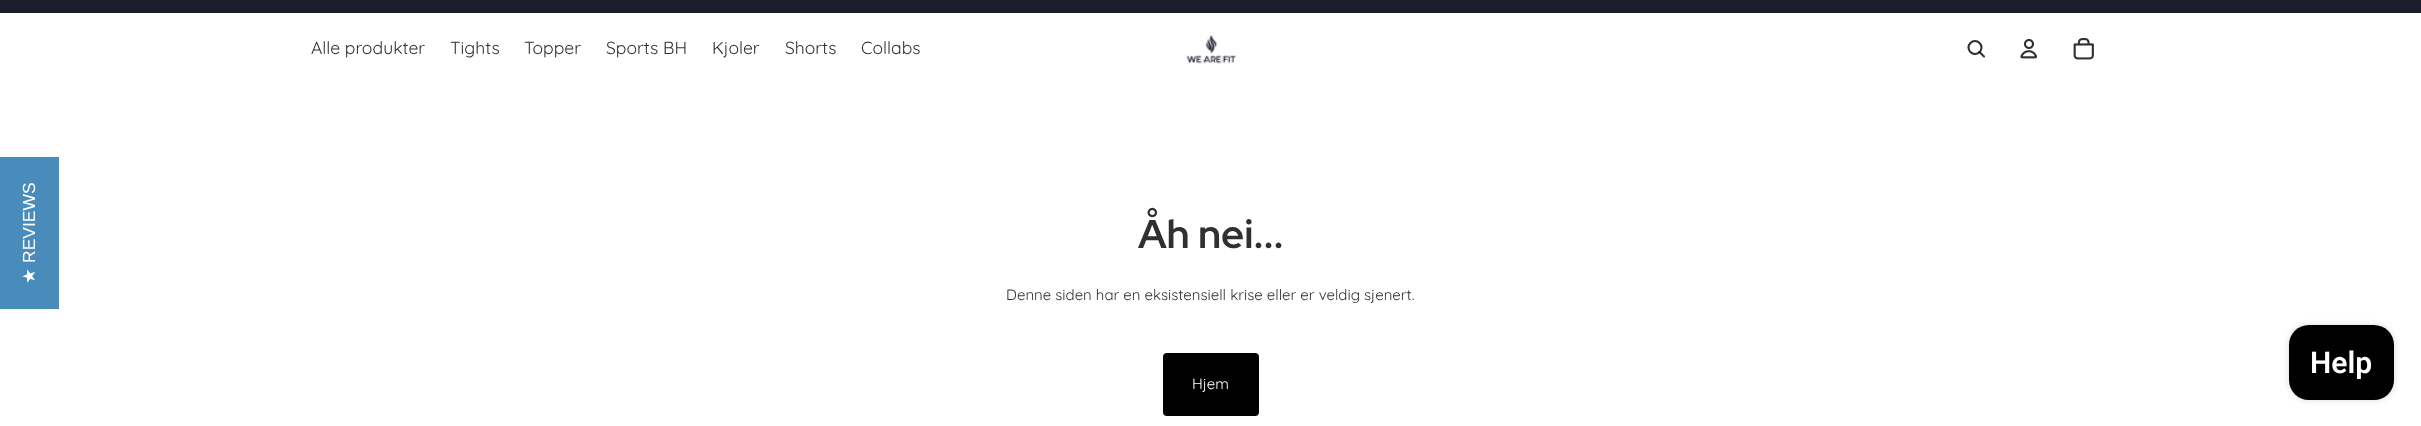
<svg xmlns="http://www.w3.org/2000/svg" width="2421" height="426">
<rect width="100%" height="100%" fill="#fff"/>
<rect width="2421" height="13" fill="#1b1d2a"/>
<text x="311" y="54" style="font-family:Quicksand;font-size:17.5px;fill:#303030">Alle produkter</text>
<text x="450" y="54" style="font-family:Quicksand;font-size:17.5px;fill:#303030">Tights</text>
<text x="524" y="54" style="font-family:Quicksand;font-size:17.5px;fill:#303030">Topper</text>
<text x="606" y="54" style="font-family:Quicksand;font-size:17.5px;fill:#303030">Sports BH</text>
<text x="712" y="54" style="font-family:Quicksand;font-size:17.5px;fill:#303030">Kjoler</text>
<text x="785" y="54" style="font-family:Quicksand;font-size:17.5px;fill:#303030">Shorts</text>
<text x="861" y="54" style="font-family:Quicksand;font-size:17.5px;fill:#303030">Collabs</text>
<image x="1186" y="35" width="51" height="29" href="media/1.png"/>
<circle cx="1975" cy="47.5" r="6.5" fill="none" stroke="#303030" stroke-width="2.1"/>
<path d="M1979.5 52l4.5 4.5" fill="none" stroke="#000000cf" stroke-width="2.1" stroke-linecap="round" stroke-linejoin="round"/>
<image x="2020" y="39" width="18" height="20" href="media/2.png"/>
<image x="2073" y="38" width="21" height="22" href="media/3.png"/>
<rect y="157" width="59" height="152" fill="#498cbc"/>
<text x="35" y="263" transform="rotate(-90 35 263)" style="font-family:Liberation Sans;font-size:17.5px;fill:#fff">REVIEWS</text>
<text x="35" y="284" transform="rotate(-90 35 284)" style="font-family:DejaVu Sans;font-size:17.5px;fill:#fff">★</text>
<text x="1138" y="248" style="font-family:Red Hat Display;font-size:40px;font-weight:bold;fill:#303030">Åh nei...</text>
<text x="1006" y="300" style="font-family:Quicksand;font-size:15px;fill:#303030">Denne siden har en eksistensiell krise eller er veldig sjenert.</text>
<rect x="1163" y="353" width="96" height="63" rx="4" fill="#000"/>
<text x="1192" y="389" style="font-family:Quicksand;font-size:15px;fill:#fff">Hjem</text>
<rect x="2289" y="325" width="105" height="75" rx="20" fill="#00000026" filter="blur(3px)"/>
<rect x="2289" y="325" width="105" height="75" rx="20" fill="#000"/>
<text x="2310" y="373" style="font-family:Roboto;font-size:30px;font-weight:600;fill:#fff">Help</text>
</svg>
